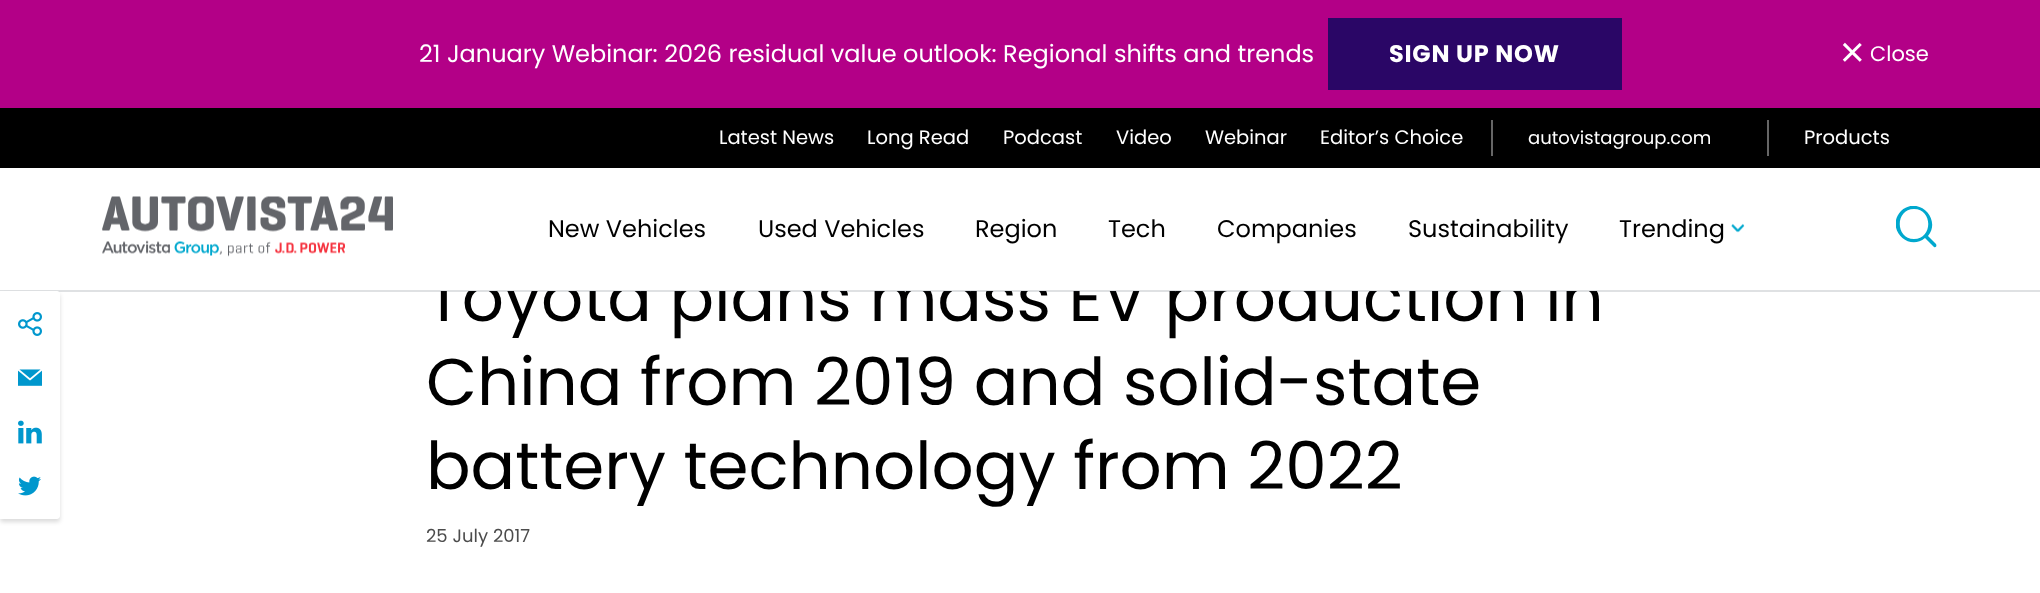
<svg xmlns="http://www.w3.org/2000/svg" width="2040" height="593">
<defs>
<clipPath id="clip1"><rect x="1896" y="206" width="42" height="42"/></clipPath>
</defs>
<rect width="100%" height="100%" fill="#fff"/>
<rect width="2040" height="108" fill="#b30087"/>
<text x="419" y="62" style="font-family:Poppins;font-size:24px;fill:#fff">21 January Webinar: 2026 residual value outlook: Regional shifts and trends</text>
<rect x="1328" y="18" width="294" height="72" fill="#2a0666"/>
<text x="1389" y="62" style="font-family:Poppins;font-size:24px;font-weight:bold;letter-spacing:0.75px;fill:#fff">SIGN UP NOW</text>
<text x="1839" y="69" style="font-family:Poppins;font-size:45px;font-weight:300;fill:#fff">×</text>
<text x="1870" y="61" style="font-family:Poppins;font-size:21px;fill:#fff">Close</text>
<rect y="108" width="2040" height="60" fill="#000"/>
<text x="719" y="144" style="font-family:Poppins;font-size:19.5px;fill:#fff">Latest News</text>
<text x="867" y="144" style="font-family:Poppins;font-size:19.5px;fill:#fff">Long Read</text>
<text x="1003" y="144" style="font-family:Poppins;font-size:19.5px;fill:#fff">Podcast</text>
<text x="1116" y="144" style="font-family:Poppins;font-size:19.5px;fill:#fff">Video</text>
<text x="1205" y="144" style="font-family:Poppins;font-size:19.5px;fill:#fff">Webinar</text>
<text x="1320" y="144" style="font-family:Poppins;font-size:19.5px;fill:#fff">Editor’s Choice</text>
<rect x="1767" y="120" width="2" height="36" fill="#666"/>
<rect x="1491" y="120" width="2" height="36" fill="#666"/>
<text x="1528" y="144" style="font-family:Poppins;font-size:18px;fill:#fff">autovistagroup.com</text>
<text x="1804" y="144" style="font-family:Poppins;font-size:19.5px;fill:#fff">Products</text>
<text x="426" y="321" style="font-family:Poppins;font-size:66px;fill:#000">Toyota plans mass EV production in</text>
<rect x="428" y="270" width="1170" height="21" fill="#fff"/>
<rect y="290" width="2040" height="2" fill="#25374626"/>
<image x="102" y="196" width="291" height="61" href="media/1.png"/>
<text x="548" y="237" style="font-family:Poppins;font-size:24px;fill:#000">New Vehicles</text>
<text x="758" y="237" style="font-family:Poppins;font-size:24px;fill:#000">Used Vehicles</text>
<text x="975" y="237" style="font-family:Poppins;font-size:24px;fill:#000">Region</text>
<text x="1108" y="237" style="font-family:Poppins;font-size:24px;fill:#000">Tech</text>
<text x="1217" y="237" style="font-family:Poppins;font-size:24px;fill:#000">Companies</text>
<text x="1408" y="237" style="font-family:Poppins;font-size:24px;fill:#000">Sustainability</text>
<text x="1619" y="237" style="font-family:Poppins;font-size:24px;fill:#000">Trending</text>
<image x="1731" y="223" width="14" height="10" href="media/2.png"/>
<g clip-path="url(#clip1)">
<path d="M1914 239c-19 0-19-30 0-30c19 0 19 30 0 30m22 5l-8-8c14-17-10-41-27-25c-16 17 7 41 24 27l9 9c2 1 3-1 2-3" fill="#00a8ce" fill-rule="evenodd"/>
</g>
<rect y="294" width="60" height="228" rx="3" fill="#00000024" filter="blur(2px)"/>
<path d="M0 291h57c1.5 0 3 1.5 3 3v222c0 1.5-1.5 3-3 3h-57z" fill="#fff"/>
<image x="18" y="312" width="24" height="24" href="media/3.png"/>
<image x="18" y="369" width="24" height="17" href="media/4.png"/>
<image x="18" y="420" width="24" height="24" href="media/5.png"/>
<image x="18" y="476" width="23" height="20" href="media/6.png"/>
<text x="426" y="405" style="font-family:Poppins;font-size:66px;fill:#000">China from 2019 and solid-state</text>
<text x="426" y="489" style="font-family:Poppins;font-size:66px;fill:#000">battery technology from 2022</text>
<text x="426" y="542" style="font-family:Poppins;font-size:18px;fill:#4c4c4c">25 July 2017</text>
</svg>
